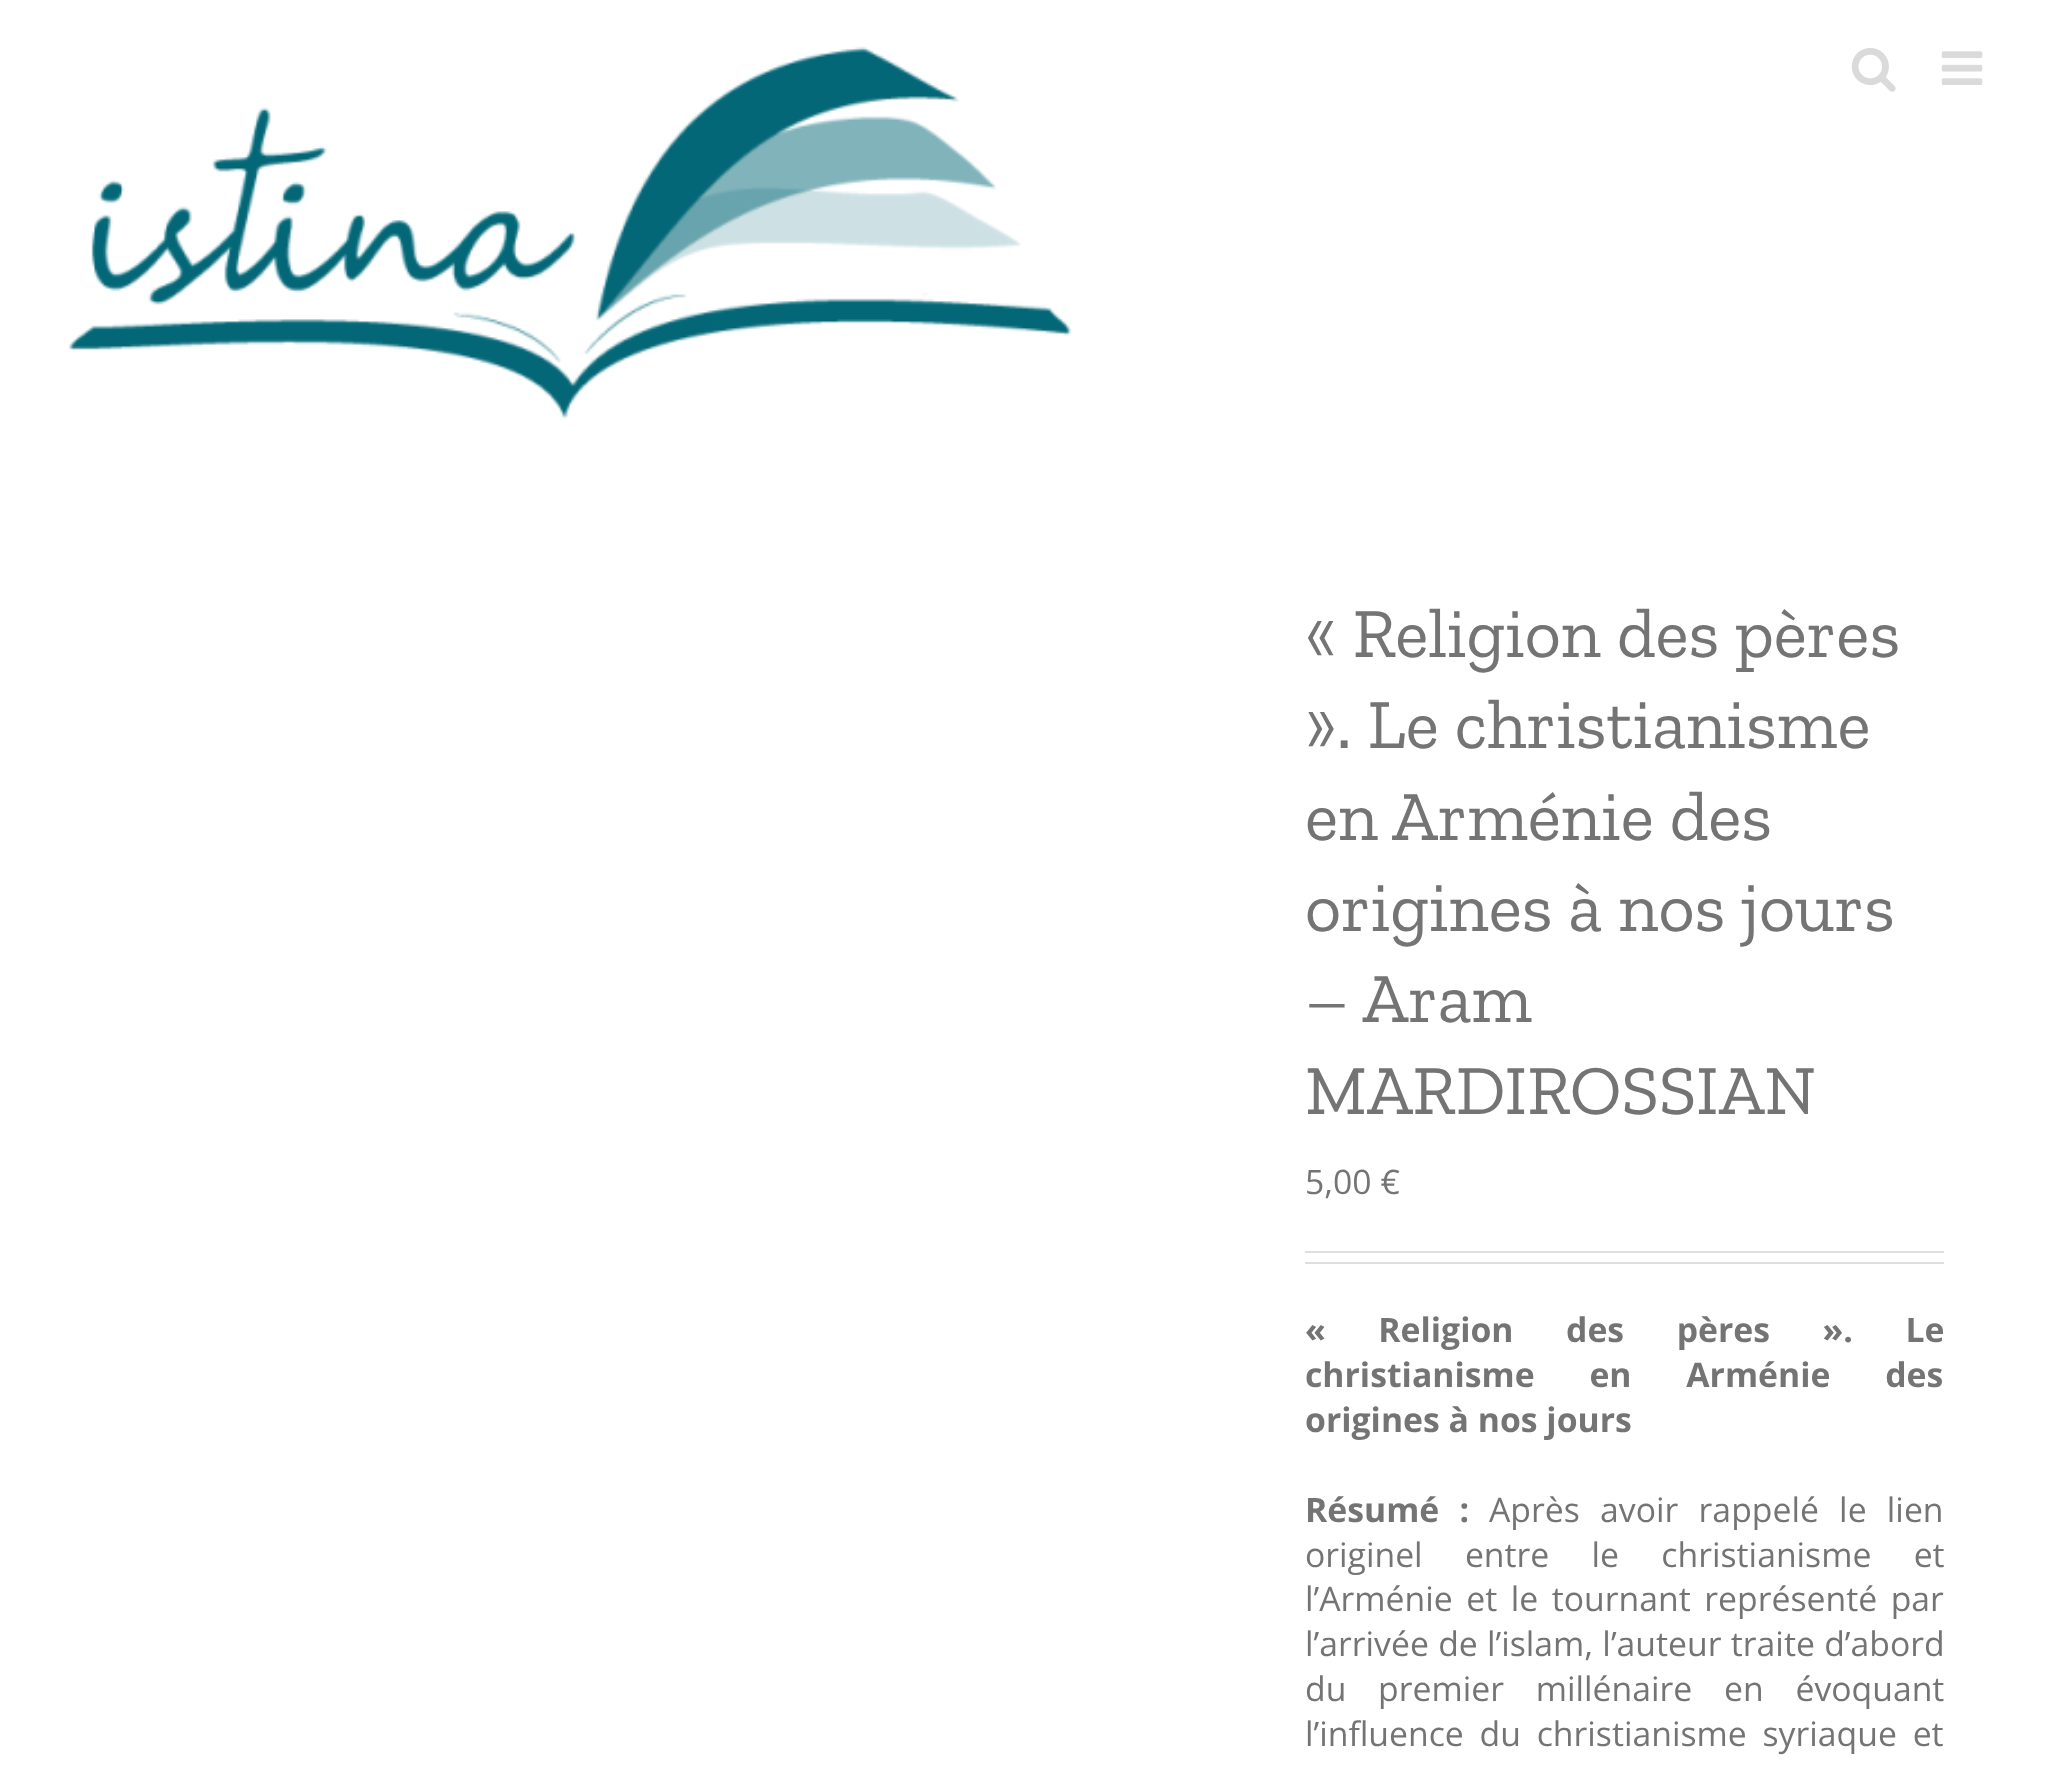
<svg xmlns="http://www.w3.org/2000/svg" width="2056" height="1770">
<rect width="100%" height="100%" fill="#fff"/>
<image x="68" y="46" width="1003" height="373" href="media/1.png"/>
<image x="1851" y="48" width="45" height="44" href="media/2.png"/>
<image x="1941" y="51" width="42" height="34" href="media/3.png"/>
<text x="1305" y="657" style="font-family:Zilla Slab;font-size:70.25px;fill:#747474">« Religion des pères</text>
<text x="1305" y="748" style="font-family:Zilla Slab;font-size:70.25px;fill:#747474">». Le christianisme</text>
<text x="1305" y="840" style="font-family:Zilla Slab;font-size:70.25px;fill:#747474">en Arménie des</text>
<text x="1305" y="931" style="font-family:Zilla Slab;font-size:70.25px;fill:#747474">origines à nos jours</text>
<text x="1305" y="1022" style="font-family:Zilla Slab;font-size:70.25px;fill:#747474">– Aram</text>
<text x="1305" y="1114" style="font-family:Zilla Slab;font-size:70.25px;fill:#747474">MARDIROSSIAN</text>
<text x="1305" y="1194" style="font-family:Open Sans;font-size:33.75px;fill:#747474">5,00 €</text>
<rect x="1305" y="1251" width="639" height="2" fill="#e0dede"/>
<rect x="1305" y="1262" width="639" height="2" fill="#e0dede"/>
<text x="1305" y="1342" word-spacing="43.75" style="font-family:Open Sans;font-size:33.75px;font-weight:bold;fill:#747474">« Religion des pères ». Le</text>
<text x="1305" y="1387" word-spacing="46" style="font-family:Open Sans;font-size:33.75px;font-weight:bold;fill:#747474">christianisme en Arménie des</text>
<text x="1305" y="1432" style="font-family:Open Sans;font-size:33.75px;font-weight:bold;fill:#747474">origines à nos jours</text>
<text x="1305" y="1522" word-spacing="11.5" style="font-family:Open Sans;font-size:33.75px;font-weight:bold;fill:#747474">Résumé :</text>
<text x="1489" y="1522" word-spacing="11.5" style="font-family:Open Sans;font-size:33.75px;fill:#747474">Après avoir rappelé le lien</text>
<text x="1305" y="1567" word-spacing="33.5" style="font-family:Open Sans;font-size:33.75px;fill:#747474">originel entre le christianisme et</text>
<text x="1305" y="1611" word-spacing="4.75" style="font-family:Open Sans;font-size:33.75px;fill:#747474">l’Arménie et le tournant représenté par</text>
<text x="1305" y="1656" word-spacing="0.5" style="font-family:Open Sans;font-size:33.75px;fill:#747474">l’arrivée de l’islam, l’auteur traite d’abord</text>
<text x="1305" y="1701" word-spacing="23" style="font-family:Open Sans;font-size:33.75px;fill:#747474">du premier millénaire en évoquant</text>
<text x="1305" y="1746" word-spacing="7" style="font-family:Open Sans;font-size:33.75px;fill:#747474">l’influence du christianisme syriaque et</text>
</svg>
